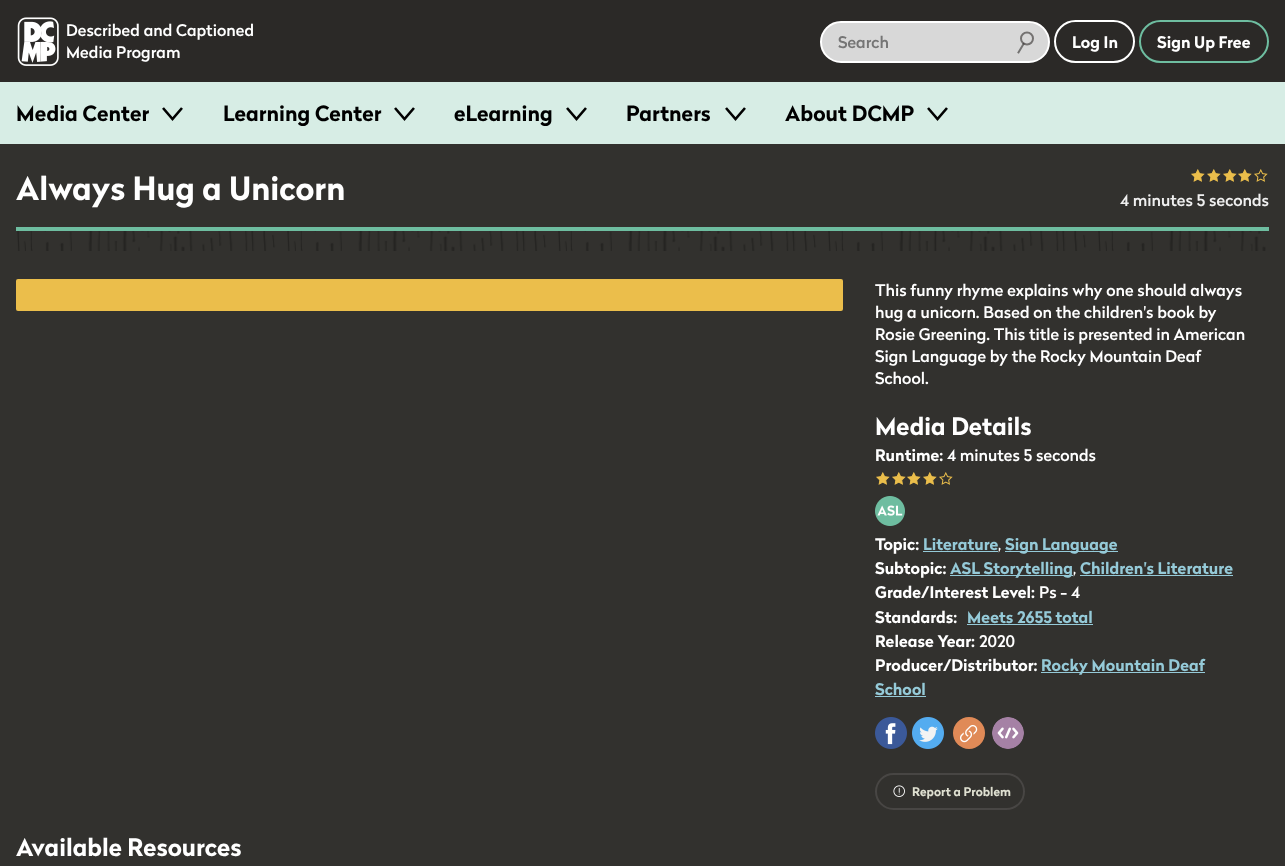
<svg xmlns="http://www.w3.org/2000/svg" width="1285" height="866">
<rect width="100%" height="100%" fill="#32312e"/>
<rect width="1285" height="82" fill="#2b2927"/>
<image x="17" y="17" width="42" height="49" href="media/1.png"/>
<text x="66" y="36" style="font-family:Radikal;font-size:16px;font-weight:500;fill:#fff">Described and Captioned</text>
<text x="66" y="58" style="font-family:Radikal;font-size:16px;font-weight:500;fill:#fff">Media Program</text>
<rect x="821" y="22" width="228" height="40" rx="20" fill="#d8d8d8" stroke="#fff" stroke-width="2"/>
<text x="838" y="48" style="font-family:Radikal;font-size:16px;font-weight:500;fill:#757575">Search</text>
<circle cx="1027" cy="38.5" r="6" fill="none" stroke="#747271" stroke-width="2"/>
<path d="M1023.5 44l-5 8.5" fill="none" stroke="#2b292794" stroke-width="2" stroke-linecap="square"/>
<rect x="1055" y="21" width="79" height="41" rx="20.5" fill="none" stroke="#fff" stroke-width="2"/>
<text x="1072" y="48" style="font-family:Radikal;font-size:16px;font-weight:bold;fill:#fff">Log In</text>
<rect x="1140" y="21" width="128" height="41" rx="20.5" fill="none" stroke="#6ebda0" stroke-width="2"/>
<text x="1157" y="48" style="font-family:Radikal;font-size:16px;font-weight:bold;fill:#fff">Sign Up Free</text>
<rect y="82" width="1285" height="62" fill="#d7ede5"/>
<text x="16" y="121" style="font-family:Radikal;font-size:21px;font-weight:bold;fill:#000">Media Center</text>
<path d="M163 108l9.5 11l9.5-11" fill="none" stroke="#010101" stroke-width="2.6"/>
<text x="223" y="121" style="font-family:Radikal;font-size:21px;font-weight:bold;fill:#000">Learning Center</text>
<path d="M395 108l9.5 11l9.5-11" fill="none" stroke="#010101" stroke-width="2.6"/>
<text x="454" y="121" style="font-family:Radikal;font-size:21px;font-weight:bold;fill:#000">eLearning</text>
<path d="M567 108l9.5 11l9.5-11" fill="none" stroke="#010101" stroke-width="2.6"/>
<text x="626" y="121" style="font-family:Radikal;font-size:21px;font-weight:bold;fill:#000">Partners</text>
<path d="M726 108l9.5 11l9.5-11" fill="none" stroke="#010101" stroke-width="2.6"/>
<text x="785" y="121" style="font-family:Radikal;font-size:21px;font-weight:bold;fill:#000">About DCMP</text>
<path d="M928 108l9.5 11l9.5-11" fill="none" stroke="#010101" stroke-width="2.6"/>
<rect x="16" y="227" width="1253" height="4" fill="#6ebda0"/>
<text x="16" y="200" style="font-family:Radikal;font-size:32px;font-weight:bold;fill:#fff">Always Hug a Unicorn</text>
<image x="1191" y="169" width="14" height="13" href="media/2.png"/>
<image x="1207" y="169" width="14" height="13" href="media/2.png"/>
<image x="1223" y="169" width="14" height="13" href="media/2.png"/>
<image x="1238" y="169" width="14" height="13" href="media/2.png"/>
<image x="1254" y="169" width="14" height="13" href="media/3.png"/>
<text x="1120" y="206" style="font-family:Radikal;font-size:16px;font-weight:500;fill:#efefef">4 minutes 5 seconds</text>
<image x="17" y="231" width="1249" height="20" href="media/4.png"/>
<rect x="16" y="279" width="827" height="32" rx="2" fill="#ebbe4b"/>
<text x="875" y="296" style="font-family:Radikal;font-size:16px;font-weight:500;fill:#fff">This funny rhyme explains why one should always</text>
<text x="875" y="318" style="font-family:Radikal;font-size:16px;font-weight:500;fill:#fff">hug a unicorn. Based on the children's book by</text>
<text x="875" y="340" style="font-family:Radikal;font-size:16px;font-weight:500;fill:#fff">Rosie Greening. This title is presented in American</text>
<text x="875" y="362" style="font-family:Radikal;font-size:16px;font-weight:500;fill:#fff">Sign Language by the Rocky Mountain Deaf</text>
<text x="875" y="384" style="font-family:Radikal;font-size:16px;font-weight:500;fill:#fff">School.</text>
<text x="875" y="435" style="font-family:Radikal;font-size:24px;font-weight:bold;fill:#fff">Media Details</text>
<text x="875" y="461" style="font-family:Radikal;font-size:16px;font-weight:bold;fill:#fff">Runtime:</text>
<text x="947" y="461" style="font-family:Radikal;font-size:16px;font-weight:500;fill:#fff">4 minutes 5 seconds</text>
<image x="876" y="472" width="14" height="13" href="media/2.png"/>
<image x="892" y="472" width="14" height="13" href="media/2.png"/>
<image x="907" y="472" width="14" height="13" href="media/2.png"/>
<image x="923" y="472" width="14" height="13" href="media/2.png"/>
<image x="939" y="472" width="14" height="13" href="media/3.png"/>
<image x="875" y="496" width="30" height="30" href="media/5.png"/>
<text x="875" y="550" style="font-family:Radikal;font-size:16px;font-weight:bold;fill:#fff">Topic:</text>
<text x="923" y="550" style="font-family:Radikal;font-size:16px;font-weight:bold;fill:#95cad8">Literature</text>
<rect x="923" y="551" width="75" height="1" fill="#95cad8"/>
<text x="998" y="550" style="font-family:Radikal;font-size:16px;font-weight:500;fill:#fff">,</text>
<rect x="1005" y="551" width="113" height="1" fill="#95cad8"/>
<text x="1005" y="550" style="font-family:Radikal;font-size:16px;font-weight:bold;fill:#95cad8">Sign Language</text>
<text x="875" y="574" style="font-family:Radikal;font-size:16px;font-weight:bold;fill:#fff">Subtopic:</text>
<rect x="950" y="575" width="123" height="1" fill="#95cad8"/>
<text x="950" y="574" style="font-family:Radikal;font-size:16px;font-weight:bold;fill:#95cad8">ASL Storytelling</text>
<text x="1073" y="574" style="font-family:Radikal;font-size:16px;font-weight:500;fill:#fff">,</text>
<text x="1080" y="574" style="font-family:Radikal;font-size:16px;font-weight:bold;fill:#95cad8">Children's Literature</text>
<rect x="1080" y="575" width="153" height="1" fill="#95cad8"/>
<text x="875" y="598" style="font-family:Radikal;font-size:16px;font-weight:bold;fill:#fff">Grade/Interest Level:</text>
<text x="1039" y="598" style="font-family:Radikal;font-size:16px;font-weight:500;fill:#fff">Ps - 4</text>
<text x="875" y="623" style="font-family:Radikal;font-size:16px;font-weight:bold;fill:#fff">Standards:</text>
<text x="967" y="623" style="font-family:Radikal;font-size:16px;font-weight:bold;fill:#95cad8">Meets 2655 total</text>
<rect x="967" y="624" width="126" height="1" fill="#95cad8"/>
<text x="875" y="647" style="font-family:Radikal;font-size:16px;font-weight:bold;fill:#fff">Release Year:</text>
<text x="979" y="647" style="font-family:Radikal;font-size:16px;font-weight:500;fill:#fff">2020</text>
<text x="875" y="671" style="font-family:Radikal;font-size:16px;font-weight:bold;fill:#fff">Producer/Distributor:</text>
<rect x="1041" y="672" width="164" height="1" fill="#95cad8"/>
<text x="1041" y="671" style="font-family:Radikal;font-size:16px;font-weight:bold;fill:#95cad8">Rocky Mountain Deaf</text>
<text x="875" y="695" style="font-family:Radikal;font-size:16px;font-weight:bold;fill:#95cad8">School</text>
<rect x="875" y="696" width="51" height="1" fill="#95cad8"/>
<image x="875" y="717" width="32" height="32" href="media/6.png"/>
<image x="912" y="717" width="32" height="32" href="media/7.png"/>
<circle cx="969" cy="733" r="16" fill="#e08a57"/>
<image x="960" y="725" width="18" height="18" href="media/8.png"/>
<image x="992" y="717" width="32" height="32" href="media/9.png"/>
<rect x="876" y="774" width="148" height="35" rx="17.5" fill="none" stroke="#484644" stroke-width="2"/>
<image x="893" y="785" width="12" height="12" href="media/10.png"/>
<text x="912" y="796" style="font-family:Radikal;font-size:12px;font-weight:bold;fill:#dfe0d1">Report a Problem</text>
<text x="16" y="856" style="font-family:Radikal;font-size:24px;font-weight:bold;fill:#fff">Available Resources</text>
</svg>
